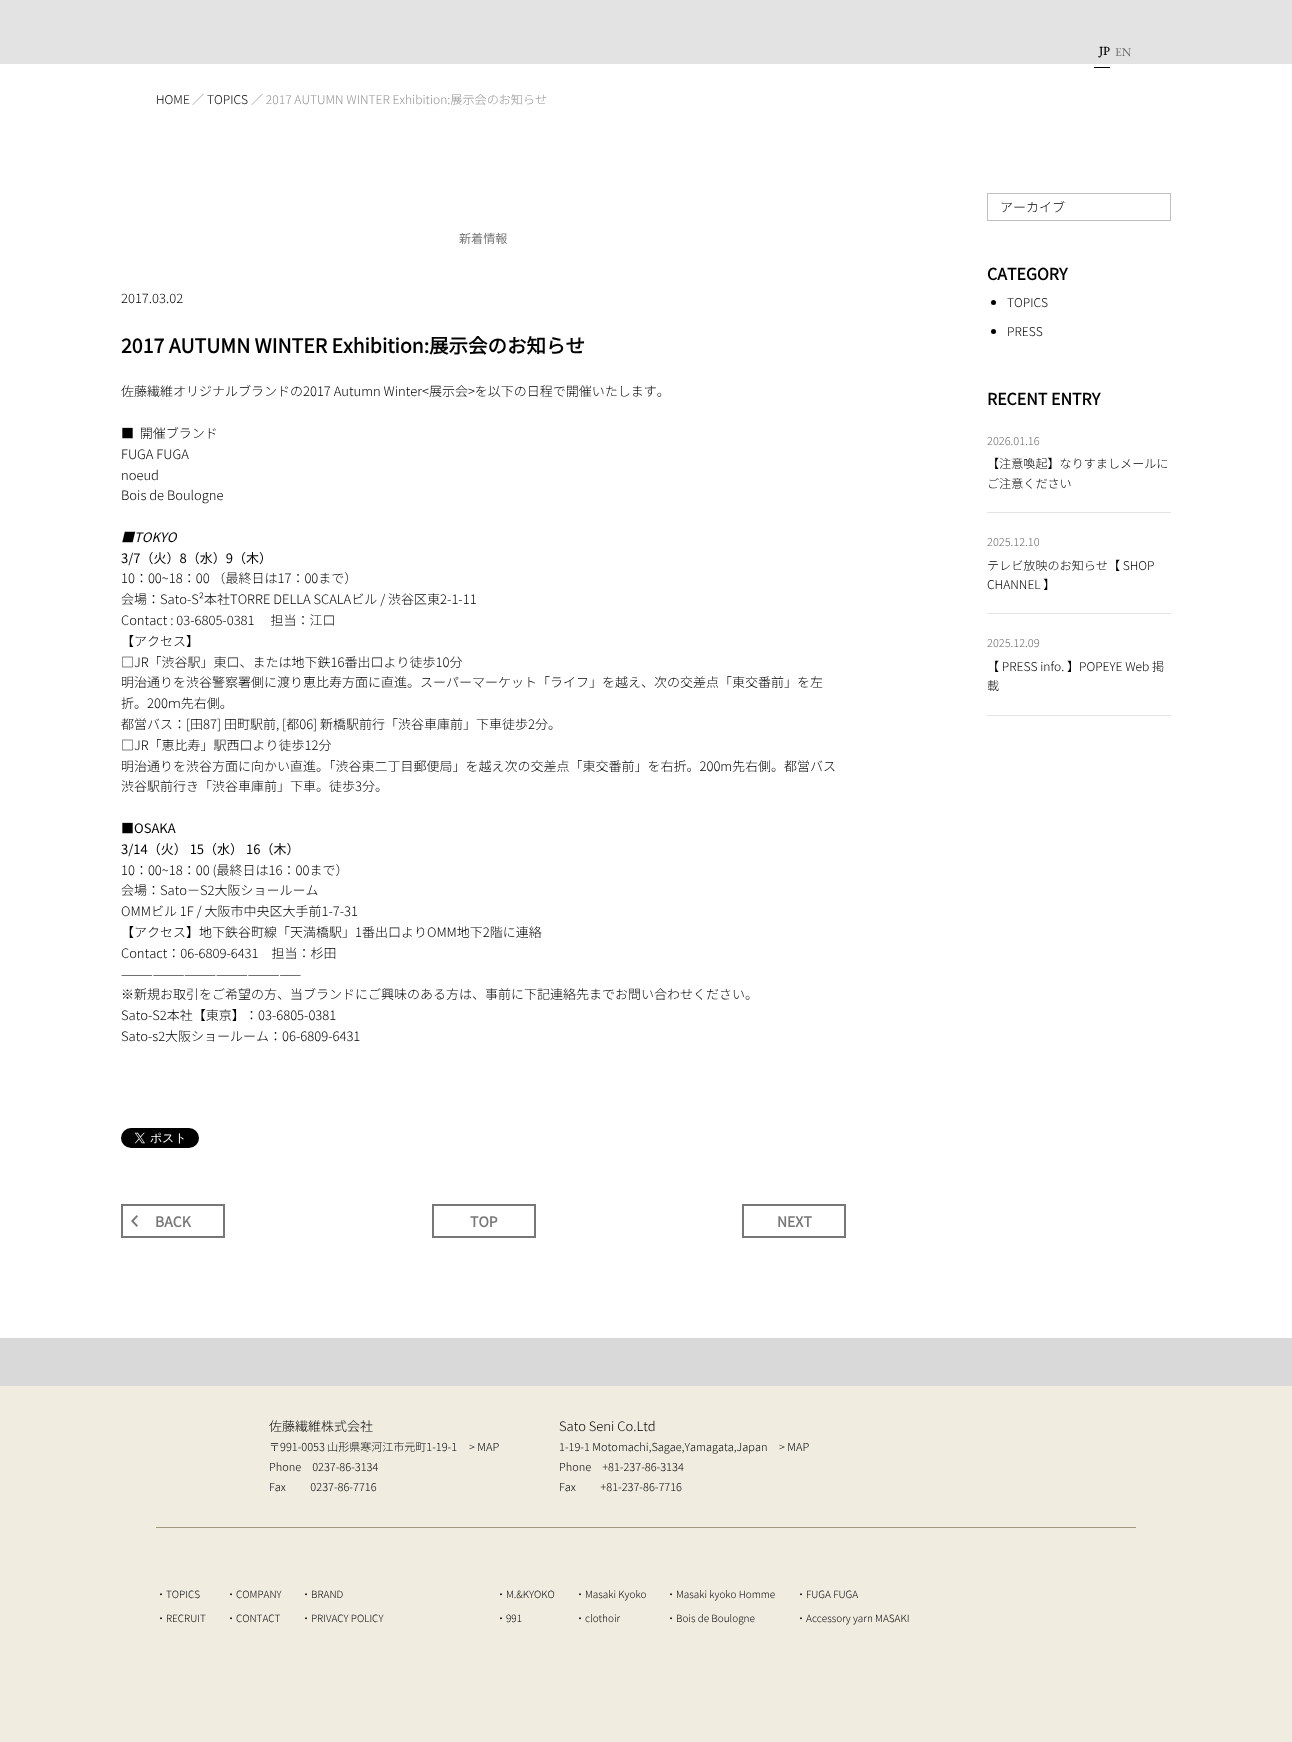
<svg xmlns="http://www.w3.org/2000/svg" width="1292" height="1742">
<style>*{font-kerning:none!important;font-variant-ligatures:none!important}</style>
<rect width="100%" height="100%" fill="#f0ece0"/>
<rect width="1292" height="64" fill="#e3e3e3"/>
<rect y="64" width="1292" height="1274" fill="#fff"/>
<rect x="1094" y="67" width="16" height="1" fill="#000"/>
<text x="1099" y="55" style="font-family:EB Garamond;font-size:12px;font-weight:bold;fill:#000">JP</text>
<text x="1115" y="56" style="font-family:EB Garamond;font-size:12px;fill:#6a6a6a">EN</text>
<text x="156" y="104" style="font-family:Noto Sans JP;font-size:12.1px;font-weight:300;fill:#000">HOME</text>
<text x="192" y="104" style="font-family:Noto Sans JP;font-size:12.1px;font-weight:300;fill:#939393">／</text>
<text x="207" y="104" style="font-family:Noto Sans JP;font-size:12.1px;font-weight:300;fill:#000">TOPICS</text>
<text x="251" y="104" style="font-family:Noto Sans JP;font-size:12.1px;font-weight:300;fill:#939393">／ 2017 AUTUMN WINTER Exhibition:展示会のお知らせ</text>
<text x="459" y="243" style="font-family:Noto Sans JP;font-size:12.1px;fill:#777">新着情報</text>
<text x="121" y="303" style="font-family:Noto Sans JP;font-size:13px;font-weight:300;fill:#000">2017.03.02</text>
<text x="121" y="353" style="font-family:Noto Sans JP;font-size:19.5px;font-weight:bold;fill:#000">2017 AUTUMN WINTER Exhibition:展示会のお知らせ</text>
<text x="121" y="396" style="font-family:Noto Sans JP;font-size:13px;font-weight:300;fill:#000">佐藤繊維オリジナルブランドの2017 Autumn Winter&lt;展示会&gt;を以下の日程で開催いたします。</text>
<text x="121" y="438" style="font-family:Noto Sans JP;font-size:13px;font-weight:300;fill:#000" xml:space="preserve">■  開催ブランド</text>
<text x="121" y="459" style="font-family:Noto Sans JP;font-size:13px;font-weight:300;fill:#000">FUGA FUGA</text>
<text x="121" y="480" style="font-family:Noto Sans JP;font-size:13px;font-weight:300;fill:#000">noeud</text>
<text x="121" y="500" style="font-family:Noto Sans JP;font-size:13px;font-weight:300;fill:#000">Bois de Boulogne</text>
<text x="121" y="542" style="font-family:Noto Sans JP;font-size:13px;font-style:italic;fill:#000">■TOKYO</text>
<text x="121" y="563" style="font-family:Noto Sans JP;font-size:13px;fill:#000">3/7（火）8（水）9（木）</text>
<text x="121" y="583" style="font-family:Noto Sans JP;font-size:13px;font-weight:300;fill:#000">10：00~18：00 （最終日は17：00まで）</text>
<text x="121" y="604" style="font-family:Noto Sans JP;font-size:13px;font-weight:300;fill:#000">会場：Sato-S²本社TORRE DELLA SCALAビル / 渋谷区東2-1-11</text>
<text x="121" y="625" style="font-family:Noto Sans JP;font-size:13px;font-weight:300;fill:#000">Contact : 03-6805-0381 　担当：江口</text>
<text x="121" y="646" style="font-family:Noto Sans JP;font-size:13px;font-weight:300;fill:#000">【アクセス】</text>
<text x="121" y="667" style="font-family:Noto Sans JP;font-size:13px;font-weight:300;fill:#000">□JR「渋谷駅」東口、または地下鉄16番出口より徒歩10分</text>
<text x="121" y="687" style="font-family:Noto Sans JP;font-size:13px;font-weight:300;fill:#000">明治通りを渋谷警察署側に渡り恵比寿方面に直進。スーパーマーケット「ライフ」を越え、次の交差点「東交番前」を左</text>
<text x="121" y="708" style="font-family:Noto Sans JP;font-size:13px;font-weight:300;fill:#000">折。200ｍ先右側。</text>
<text x="121" y="729" style="font-family:Noto Sans JP;font-size:13px;font-weight:300;fill:#000">都営バス：[田87] 田町駅前, [都06] 新橋駅前行「渋谷車庫前」下車徒歩2分。</text>
<text x="121" y="750" style="font-family:Noto Sans JP;font-size:13px;font-weight:300;fill:#000">□JR「恵比寿」駅西口より徒歩12分</text>
<text x="121" y="771" style="font-family:Noto Sans JP;font-size:13px;font-weight:300;fill:#000">明治通りを渋谷方面に向かい直進。「渋谷東二丁目郵便局」を越え次の交差点「東交番前」を右折。200m先右側。都営バス</text>
<text x="121" y="791" style="font-family:Noto Sans JP;font-size:13px;font-weight:300;fill:#000">渋谷駅前行き「渋谷車庫前」下車。徒歩3分。</text>
<text x="121" y="833" style="font-family:Noto Sans JP;font-size:13px;fill:#000">■OSAKA</text>
<text x="121" y="854" style="font-family:Noto Sans JP;font-size:13px;fill:#000">3/14（火） 15（水） 16（木）</text>
<text x="121" y="875" style="font-family:Noto Sans JP;font-size:13px;font-weight:300;fill:#000">10：00~18：00 (最終日は16：00まで）</text>
<text x="121" y="895" style="font-family:Noto Sans JP;font-size:13px;font-weight:300;fill:#000">会場：Sato－S2大阪ショールーム</text>
<text x="121" y="916" style="font-family:Noto Sans JP;font-size:13px;font-weight:300;fill:#000">OMMビル 1F / 大阪市中央区大手前1-7-31</text>
<text x="121" y="937" style="font-family:Noto Sans JP;font-size:13px;font-weight:300;fill:#000">【アクセス】地下鉄谷町線「天満橋駅」1番出口よりOMM地下2階に連絡</text>
<text x="121" y="958" style="font-family:Noto Sans JP;font-size:13px;font-weight:300;fill:#000">Contact：06-6809-6431　担当：杉田</text>
<text x="121" y="979" style="font-family:Noto Sans JP;font-size:13px;font-weight:300;fill:#000">—————————————————</text>
<text x="121" y="999" style="font-family:Noto Sans JP;font-size:13px;font-weight:300;fill:#000">※新規お取引をご希望の方、当ブランドにご興味のある方は、事前に下記連絡先までお問い合わせください。</text>
<text x="121" y="1020" style="font-family:Noto Sans JP;font-size:13px;font-weight:300;fill:#000">Sato-S2本社【東京】</text>
<text x="245" y="1020" style="font-family:Noto Sans JP;font-size:13px;font-weight:300;fill:#000">：03-6805-0381</text>
<text x="121" y="1041" style="font-family:Noto Sans JP;font-size:13px;font-weight:300;fill:#000">Sato-s2大阪ショールーム：06-6809-6431</text>
<image x="121" y="1128" width="78" height="20" href="media/1.png"/>
<image x="131" y="1215" width="7" height="12" href="media/2.png"/>
<rect x="122" y="1205" width="102" height="32" fill="none" stroke="#777" stroke-width="2"/>
<text x="155" y="1227" style="font-family:Noto Sans JP;font-size:14px;font-weight:bold;fill:#777">BACK</text>
<rect x="433" y="1205" width="102" height="32" fill="none" stroke="#777" stroke-width="2"/>
<text x="470" y="1227" style="font-family:Noto Sans JP;font-size:14px;font-weight:bold;fill:#777">TOP</text>
<rect x="743" y="1205" width="102" height="32" fill="none" stroke="#777" stroke-width="2"/>
<text x="777" y="1227" style="font-family:Noto Sans JP;font-size:14px;font-weight:bold;fill:#777">NEXT</text>
<rect x="987.5" y="193.5" width="183" height="27" fill="none" stroke="#bfbfbf"/>
<text x="1000" y="212" style="font-family:Noto Sans JP;font-size:13px;font-weight:300;fill:#000">アーカイブ</text>
<text x="987" y="280" style="font-family:Noto Sans JP;font-size:16px;font-weight:bold;fill:#000">CATEGORY</text>
<circle cx="993.5" cy="302.5" r="2.5" fill="#000"/>
<text x="1007" y="307" style="font-family:Noto Sans JP;font-size:12.1px;font-weight:300;fill:#000">TOPICS</text>
<circle cx="993.5" cy="331.5" r="2.5" fill="#000"/>
<text x="1007" y="336" style="font-family:Noto Sans JP;font-size:12.1px;font-weight:300;fill:#000">PRESS</text>
<text x="987" y="405" style="font-family:Noto Sans JP;font-size:16px;font-weight:bold;fill:#000">RECENT ENTRY</text>
<rect x="987" y="512" width="184" height="1" fill="#e3e3e3"/>
<text x="987" y="445" style="font-family:Noto Sans JP;font-size:11px;font-weight:300;fill:#6a6a6a">2026.01.16</text>
<text x="987" y="468" style="font-family:Noto Sans JP;font-size:12.1px;font-weight:300;fill:#000">【注意喚起】なりすましメールに</text>
<text x="987" y="488" style="font-family:Noto Sans JP;font-size:12.1px;font-weight:300;fill:#000">ご注意ください</text>
<rect x="987" y="613" width="184" height="1" fill="#e3e3e3"/>
<text x="987" y="546" style="font-family:Noto Sans JP;font-size:11px;font-weight:300;fill:#6a6a6a">2025.12.10</text>
<text x="987" y="570" style="font-family:Noto Sans JP;font-size:12.1px;font-weight:300;fill:#000">テレビ放映のお知らせ【 SHOP</text>
<text x="987" y="589" style="font-family:Noto Sans JP;font-size:12.1px;font-weight:300;fill:#000">CHANNEL 】</text>
<rect x="987" y="715" width="184" height="1" fill="#e3e3e3"/>
<text x="987" y="647" style="font-family:Noto Sans JP;font-size:11px;font-weight:300;fill:#6a6a6a">2025.12.09</text>
<text x="987" y="671" style="font-family:Noto Sans JP;font-size:12.1px;font-weight:300;fill:#000">【 PRESS info. 】POPEYE Web 掲</text>
<text x="987" y="690" style="font-family:Noto Sans JP;font-size:12.1px;font-weight:300;fill:#000">載</text>
<rect y="1338" width="1292" height="48" fill="#d9d9d9"/>
<text x="269" y="1431" style="font-family:Noto Sans JP;font-size:13px;font-weight:300;fill:#000">佐藤繊維株式会社</text>
<text x="269" y="1451" style="font-family:Noto Sans JP;font-size:11px;font-weight:300;fill:#000">〒991-0053 山形県寒河江市元町1-19-1</text>
<text x="469" y="1451" style="font-family:Noto Sans JP;font-size:11px;font-weight:300;fill:#000">&gt; MAP</text>
<text x="269" y="1471" style="font-family:Noto Sans JP;font-size:11px;font-weight:300;fill:#000">Phone　0237-86-3134</text>
<text x="269" y="1491" style="font-family:Noto Sans JP;font-size:11px;font-weight:300;fill:#000">Fax　　 0237-86-7716</text>
<text x="559" y="1431" style="font-family:Noto Sans JP;font-size:13px;font-weight:300;fill:#000">Sato Seni Co.Ltd</text>
<text x="559" y="1451" style="font-family:Noto Sans JP;font-size:11px;font-weight:300;fill:#000">1-19-1 Motomachi,Sagae,Yamagata,Japan</text>
<text x="779" y="1451" style="font-family:Noto Sans JP;font-size:11px;font-weight:300;fill:#000">&gt; MAP</text>
<text x="559" y="1471" style="font-family:Noto Sans JP;font-size:11px;font-weight:300;fill:#000">Phone　+81-237-86-3134</text>
<text x="559" y="1491" style="font-family:Noto Sans JP;font-size:11px;font-weight:300;fill:#000">Fax　　 +81-237-86-7716</text>
<rect x="156" y="1527" width="980" height="1" fill="#a0987f"/>
<text x="156" y="1598" style="font-family:Noto Sans JP;font-size:10px;font-weight:300;fill:#000">・TOPICS</text>
<text x="226" y="1598" style="font-family:Noto Sans JP;font-size:10px;font-weight:300;fill:#000">・COMPANY</text>
<text x="301" y="1598" style="font-family:Noto Sans JP;font-size:10px;font-weight:300;fill:#000">・BRAND</text>
<text x="156" y="1622" style="font-family:Noto Sans JP;font-size:10px;font-weight:300;fill:#000">・RECRUIT</text>
<text x="226" y="1622" style="font-family:Noto Sans JP;font-size:10px;font-weight:300;fill:#000">・CONTACT</text>
<text x="301" y="1622" style="font-family:Noto Sans JP;font-size:10px;font-weight:300;fill:#000">・PRIVACY POLICY</text>
<text x="496" y="1598" style="font-family:Noto Sans JP;font-size:10px;font-weight:300;fill:#000">・M.&amp;KYOKO</text>
<text x="575" y="1598" style="font-family:Noto Sans JP;font-size:10px;font-weight:300;fill:#000">・Masaki Kyoko</text>
<text x="666" y="1598" style="font-family:Noto Sans JP;font-size:10px;font-weight:300;fill:#000">・Masaki kyoko Homme</text>
<text x="796" y="1598" style="font-family:Noto Sans JP;font-size:10px;font-weight:300;fill:#000">・FUGA FUGA</text>
<text x="496" y="1622" style="font-family:Noto Sans JP;font-size:10px;font-weight:300;fill:#000">・991</text>
<text x="575" y="1622" style="font-family:Noto Sans JP;font-size:10px;font-weight:300;fill:#000">・clothoir</text>
<text x="666" y="1622" style="font-family:Noto Sans JP;font-size:10px;font-weight:300;fill:#000">・Bois de Boulogne</text>
<text x="796" y="1622" style="font-family:Noto Sans JP;font-size:10px;font-weight:300;fill:#000">・Accessory yarn MASAKI</text>
</svg>
